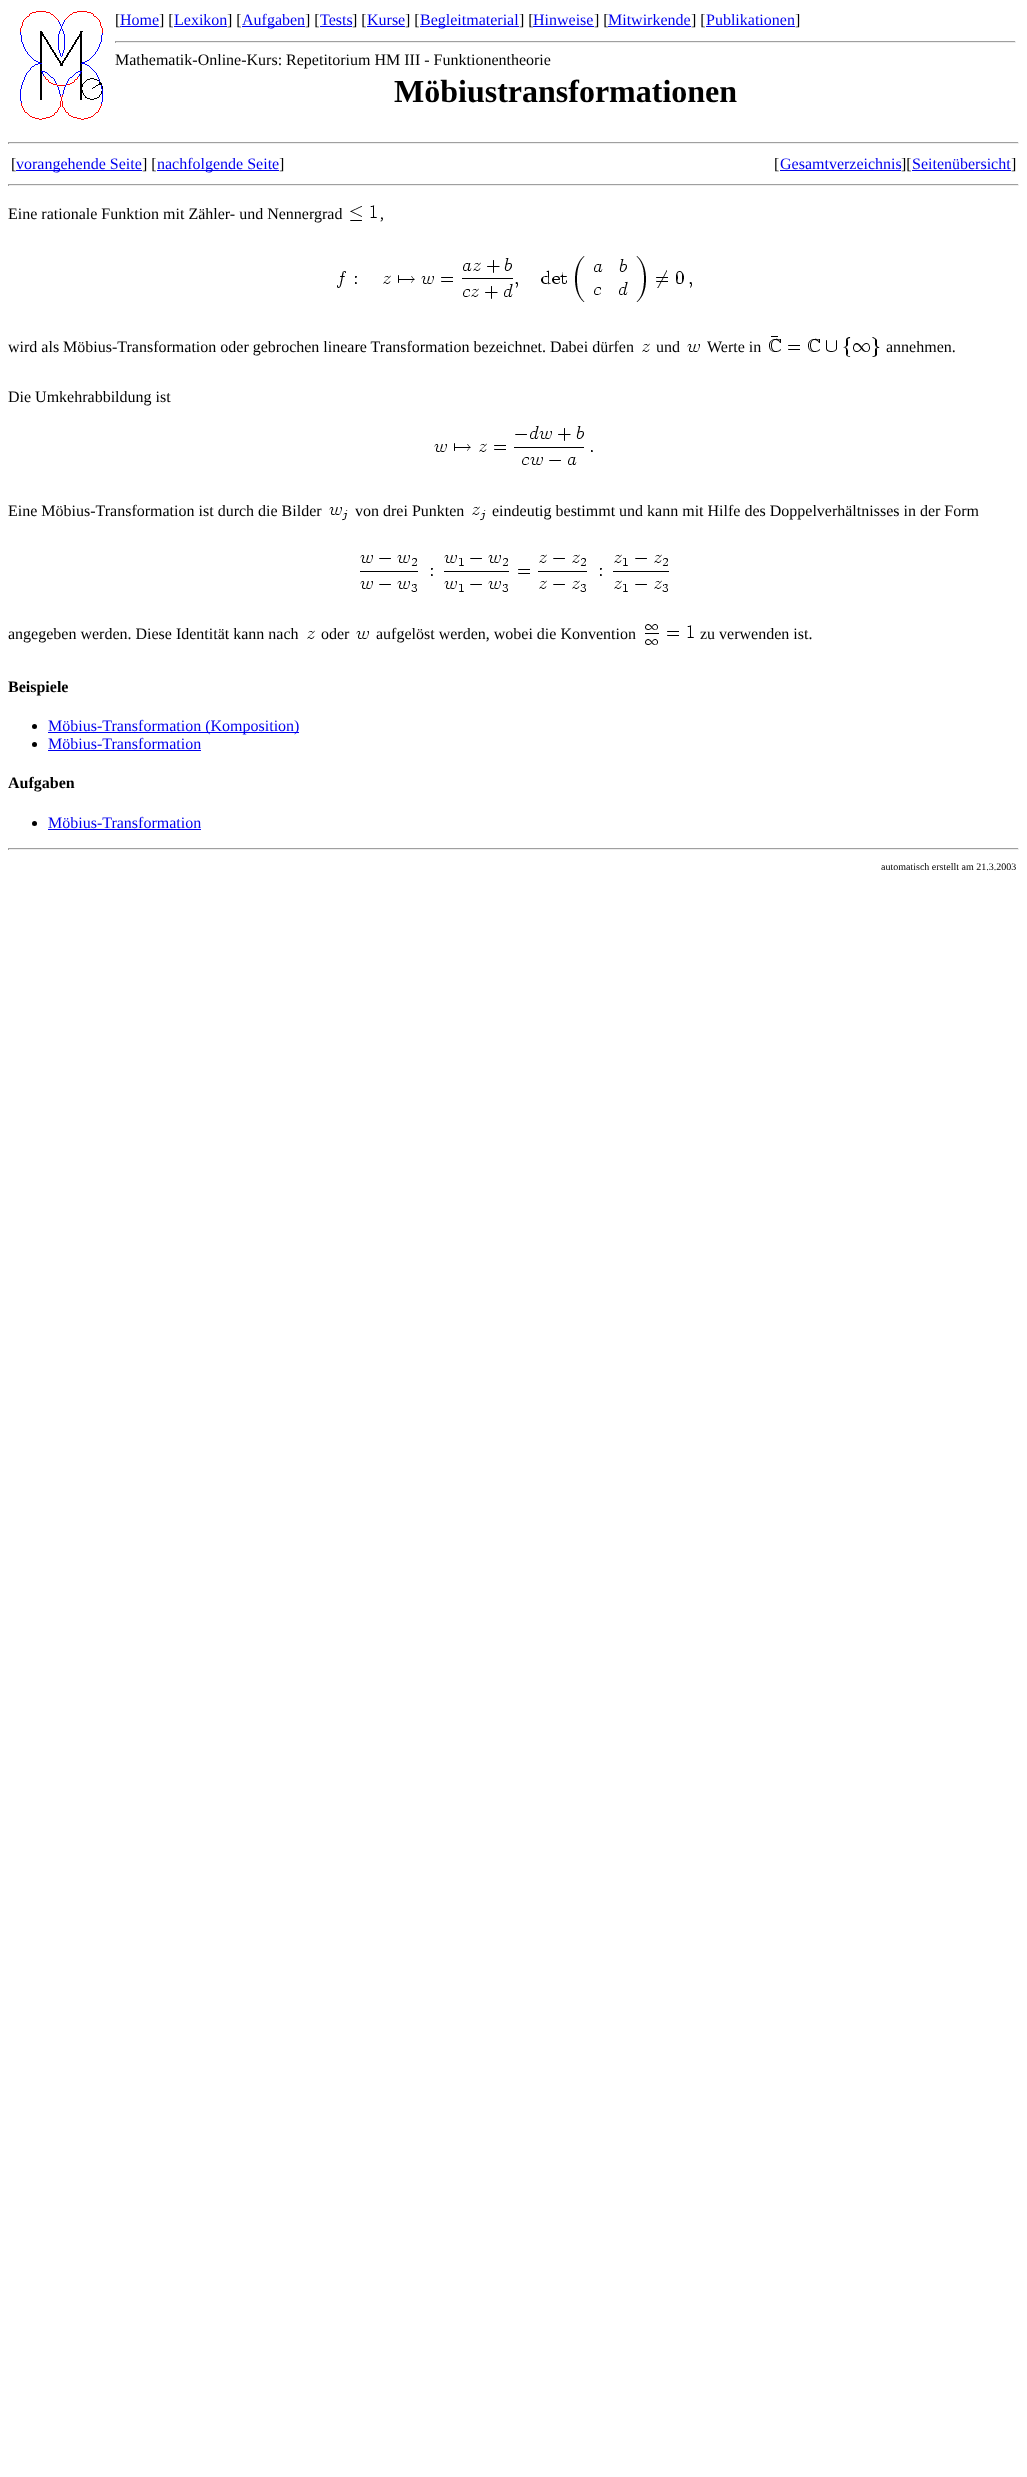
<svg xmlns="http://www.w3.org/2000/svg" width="1027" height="2477">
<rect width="100%" height="100%" fill="#fff"/>
<image x="20" y="11" width="83" height="109" href="media/1.png"/>
<text x="115" y="25" style="font-family:Liberation Serif;font-size:16px;fill:#000">[</text>
<text x="120" y="25" style="font-family:Liberation Serif;font-size:16px;fill:#00e">Home</text>
<rect x="120" y="26" width="39" height="1" fill="#00e"/>
<text x="159" y="25" style="font-family:Liberation Serif;font-size:16px;fill:#000">] [</text>
<text x="174" y="25" style="font-family:Liberation Serif;font-size:16px;fill:#00e">Lexikon</text>
<rect x="174" y="26" width="53" height="1" fill="#00e"/>
<text x="227" y="25" style="font-family:Liberation Serif;font-size:16px;fill:#000">] [</text>
<rect x="242" y="26" width="63" height="1" fill="#00e"/>
<text x="242" y="25" style="font-family:Liberation Serif;font-size:16px;fill:#00e">Aufgaben</text>
<text x="305" y="25" style="font-family:Liberation Serif;font-size:16px;fill:#000">] [</text>
<text x="320" y="25" style="font-family:Liberation Serif;font-size:16px;fill:#00e">Tests</text>
<rect x="320" y="26" width="32" height="1" fill="#00e"/>
<text x="352" y="25" style="font-family:Liberation Serif;font-size:16px;fill:#000">] [</text>
<text x="367" y="25" style="font-family:Liberation Serif;font-size:16px;fill:#00e">Kurse</text>
<rect x="367" y="26" width="38" height="1" fill="#00e"/>
<text x="405" y="25" style="font-family:Liberation Serif;font-size:16px;fill:#000">] [</text>
<rect x="420" y="26" width="99" height="1" fill="#00e"/>
<text x="420" y="25" style="font-family:Liberation Serif;font-size:16px;fill:#00e">Begleitmaterial</text>
<text x="519" y="25" style="font-family:Liberation Serif;font-size:16px;fill:#000">] [</text>
<text x="533" y="25" style="font-family:Liberation Serif;font-size:16px;fill:#00e">Hinweise</text>
<rect x="533" y="26" width="61" height="1" fill="#00e"/>
<text x="594" y="25" style="font-family:Liberation Serif;font-size:16px;fill:#000">] [</text>
<text x="608" y="25" style="font-family:Liberation Serif;font-size:16px;fill:#00e">Mitwirkende</text>
<rect x="608" y="26" width="83" height="1" fill="#00e"/>
<text x="691" y="25" style="font-family:Liberation Serif;font-size:16px;fill:#000">] [</text>
<text x="706" y="25" style="font-family:Liberation Serif;font-size:16px;fill:#00e">Publikationen</text>
<rect x="706" y="26" width="89" height="1" fill="#00e"/>
<text x="795" y="25" style="font-family:Liberation Serif;font-size:16px;fill:#000">]</text>
<rect x="115" y="41" width="901" height="1" fill="#9f9f9f"/>
<rect x="1015" y="41" width="1" height="2" fill="#eee"/>
<rect x="115" y="42" width="901" height="1" fill="#eee"/>
<rect x="115" y="41" width="1" height="2" fill="#9f9f9f"/>
<text x="115" y="65" style="font-family:Liberation Serif;font-size:16px;fill:#000">Mathematik-Online-Kurs: Repetitorium HM III - Funktionentheorie</text>
<text x="394" y="102" style="font-family:Liberation Serif;font-size:32px;font-weight:bold;fill:#000">Möbiustransformationen</text>
<rect x="8" y="142" width="1011" height="1" fill="#9f9f9f"/>
<rect x="1018" y="142" width="1" height="2" fill="#eee"/>
<rect x="8" y="143" width="1011" height="1" fill="#eee"/>
<rect x="8" y="142" width="1" height="2" fill="#9f9f9f"/>
<text x="11" y="169" style="font-family:Liberation Serif;font-size:16px;fill:#000">[</text>
<rect x="16" y="170" width="126" height="1" fill="#00e"/>
<text x="16" y="169" style="font-family:Liberation Serif;font-size:16px;fill:#00e">vorangehende Seite</text>
<text x="142" y="169" style="font-family:Liberation Serif;font-size:16px;fill:#000">] [</text>
<rect x="157" y="170" width="122" height="1" fill="#00e"/>
<text x="157" y="169" style="font-family:Liberation Serif;font-size:16px;fill:#00e">nachfolgende Seite</text>
<text x="279" y="169" style="font-family:Liberation Serif;font-size:16px;fill:#000">]</text>
<text x="774" y="169" style="font-family:Liberation Serif;font-size:16px;fill:#000">[</text>
<text x="780" y="169" style="font-family:Liberation Serif;font-size:16px;fill:#00e">Gesamtverzeichnis</text>
<rect x="780" y="170" width="121" height="1" fill="#00e"/>
<text x="901" y="169" style="font-family:Liberation Serif;font-size:16px;fill:#000">][</text>
<text x="912" y="169" style="font-family:Liberation Serif;font-size:16px;fill:#00e">Seitenübersicht</text>
<rect x="912" y="170" width="99" height="1" fill="#00e"/>
<text x="1011" y="169" style="font-family:Liberation Serif;font-size:16px;fill:#000">]</text>
<rect x="8" y="184" width="1011" height="1" fill="#9f9f9f"/>
<rect x="1018" y="184" width="1" height="2" fill="#eee"/>
<rect x="8" y="185" width="1011" height="1" fill="#eee"/>
<rect x="8" y="184" width="1" height="2" fill="#9f9f9f"/>
<text x="8" y="219" style="font-family:Liberation Serif;font-size:16px;fill:#000">Eine rationale Funktion mit Zähler- und Nennergrad</text>
<image x="350" y="205" width="27" height="16" href="media/2.png"/>
<text x="380" y="219" style="font-family:Liberation Serif;font-size:16px;fill:#000">,</text>
<image x="337" y="256" width="355" height="46" href="media/3.png"/>
<text x="8" y="352" style="font-family:Liberation Serif;font-size:16px;fill:#000">wird als Möbius-Transformation oder gebrochen lineare Transformation bezeichnet. Dabei dürfen</text>
<image x="642" y="343" width="8" height="9" href="media/4.png"/>
<text x="656" y="352" style="font-family:Liberation Serif;font-size:16px;fill:#000">und</text>
<image x="687" y="344" width="13" height="8" href="media/5.png"/>
<text x="707" y="352" style="font-family:Liberation Serif;font-size:16px;fill:#000">Werte in</text>
<image x="769" y="336" width="111" height="21" href="media/6.png"/>
<text x="886" y="352" style="font-family:Liberation Serif;font-size:16px;fill:#000">annehmen.</text>
<text x="8" y="402" style="font-family:Liberation Serif;font-size:16px;fill:#000">Die Umkehrabbildung ist</text>
<image x="434" y="425" width="159" height="40" href="media/7.png"/>
<text x="8" y="516" style="font-family:Liberation Serif;font-size:16px;fill:#000">Eine Möbius-Transformation ist durch die Bilder</text>
<image x="329" y="507" width="19" height="14" href="media/8.png"/>
<text x="355" y="516" style="font-family:Liberation Serif;font-size:16px;fill:#000">von drei Punkten</text>
<image x="472" y="506" width="14" height="15" href="media/9.png"/>
<text x="492" y="516" style="font-family:Liberation Serif;font-size:16px;fill:#000">eindeutig bestimmt und kann mit Hilfe des Doppelverhältnisses in der Form</text>
<image x="360" y="554" width="309" height="38" href="media/10.png"/>
<text x="8" y="639" style="font-family:Liberation Serif;font-size:16px;fill:#000">angegeben werden. Diese Identität kann nach</text>
<image x="307" y="630" width="8" height="9" href="media/4.png"/>
<text x="321" y="639" style="font-family:Liberation Serif;font-size:16px;fill:#000">oder</text>
<image x="356" y="631" width="13" height="8" href="media/5.png"/>
<text x="376" y="639" style="font-family:Liberation Serif;font-size:16px;fill:#000">aufgelöst werden, wobei die Konvention</text>
<image x="645" y="624" width="49" height="21" href="media/11.png"/>
<text x="700" y="639" style="font-family:Liberation Serif;font-size:16px;fill:#000">zu verwenden ist.</text>
<text x="8" y="692" style="font-family:Liberation Serif;font-size:16px;font-weight:bold;fill:#000">Beispiele</text>
<circle cx="34.5" cy="726.5" r="2.5" fill="#000"/>
<rect x="48" y="732" width="251" height="1" fill="#00e"/>
<text x="48" y="731" style="font-family:Liberation Serif;font-size:16px;fill:#00e">Möbius-Transformation (Komposition)</text>
<circle cx="34.5" cy="744.5" r="2.5" fill="#000"/>
<text x="48" y="749" style="font-family:Liberation Serif;font-size:16px;fill:#00e">Möbius-Transformation</text>
<rect x="48" y="750" width="153" height="1" fill="#00e"/>
<text x="8" y="788" style="font-family:Liberation Serif;font-size:16px;font-weight:bold;fill:#000">Aufgaben</text>
<circle cx="34.5" cy="823.5" r="2.5" fill="#000"/>
<text x="48" y="828" style="font-family:Liberation Serif;font-size:16px;fill:#00e">Möbius-Transformation</text>
<rect x="48" y="829" width="153" height="1" fill="#00e"/>
<rect x="8" y="848" width="1011" height="1" fill="#9f9f9f"/>
<rect x="1018" y="848" width="1" height="2" fill="#eee"/>
<rect x="8" y="849" width="1011" height="1" fill="#eee"/>
<rect x="8" y="848" width="1" height="2" fill="#9f9f9f"/>
<text x="881" y="870" style="font-family:Liberation Serif;font-size:10px;fill:#000">automatisch erstellt am 21.3.2003</text>
</svg>
